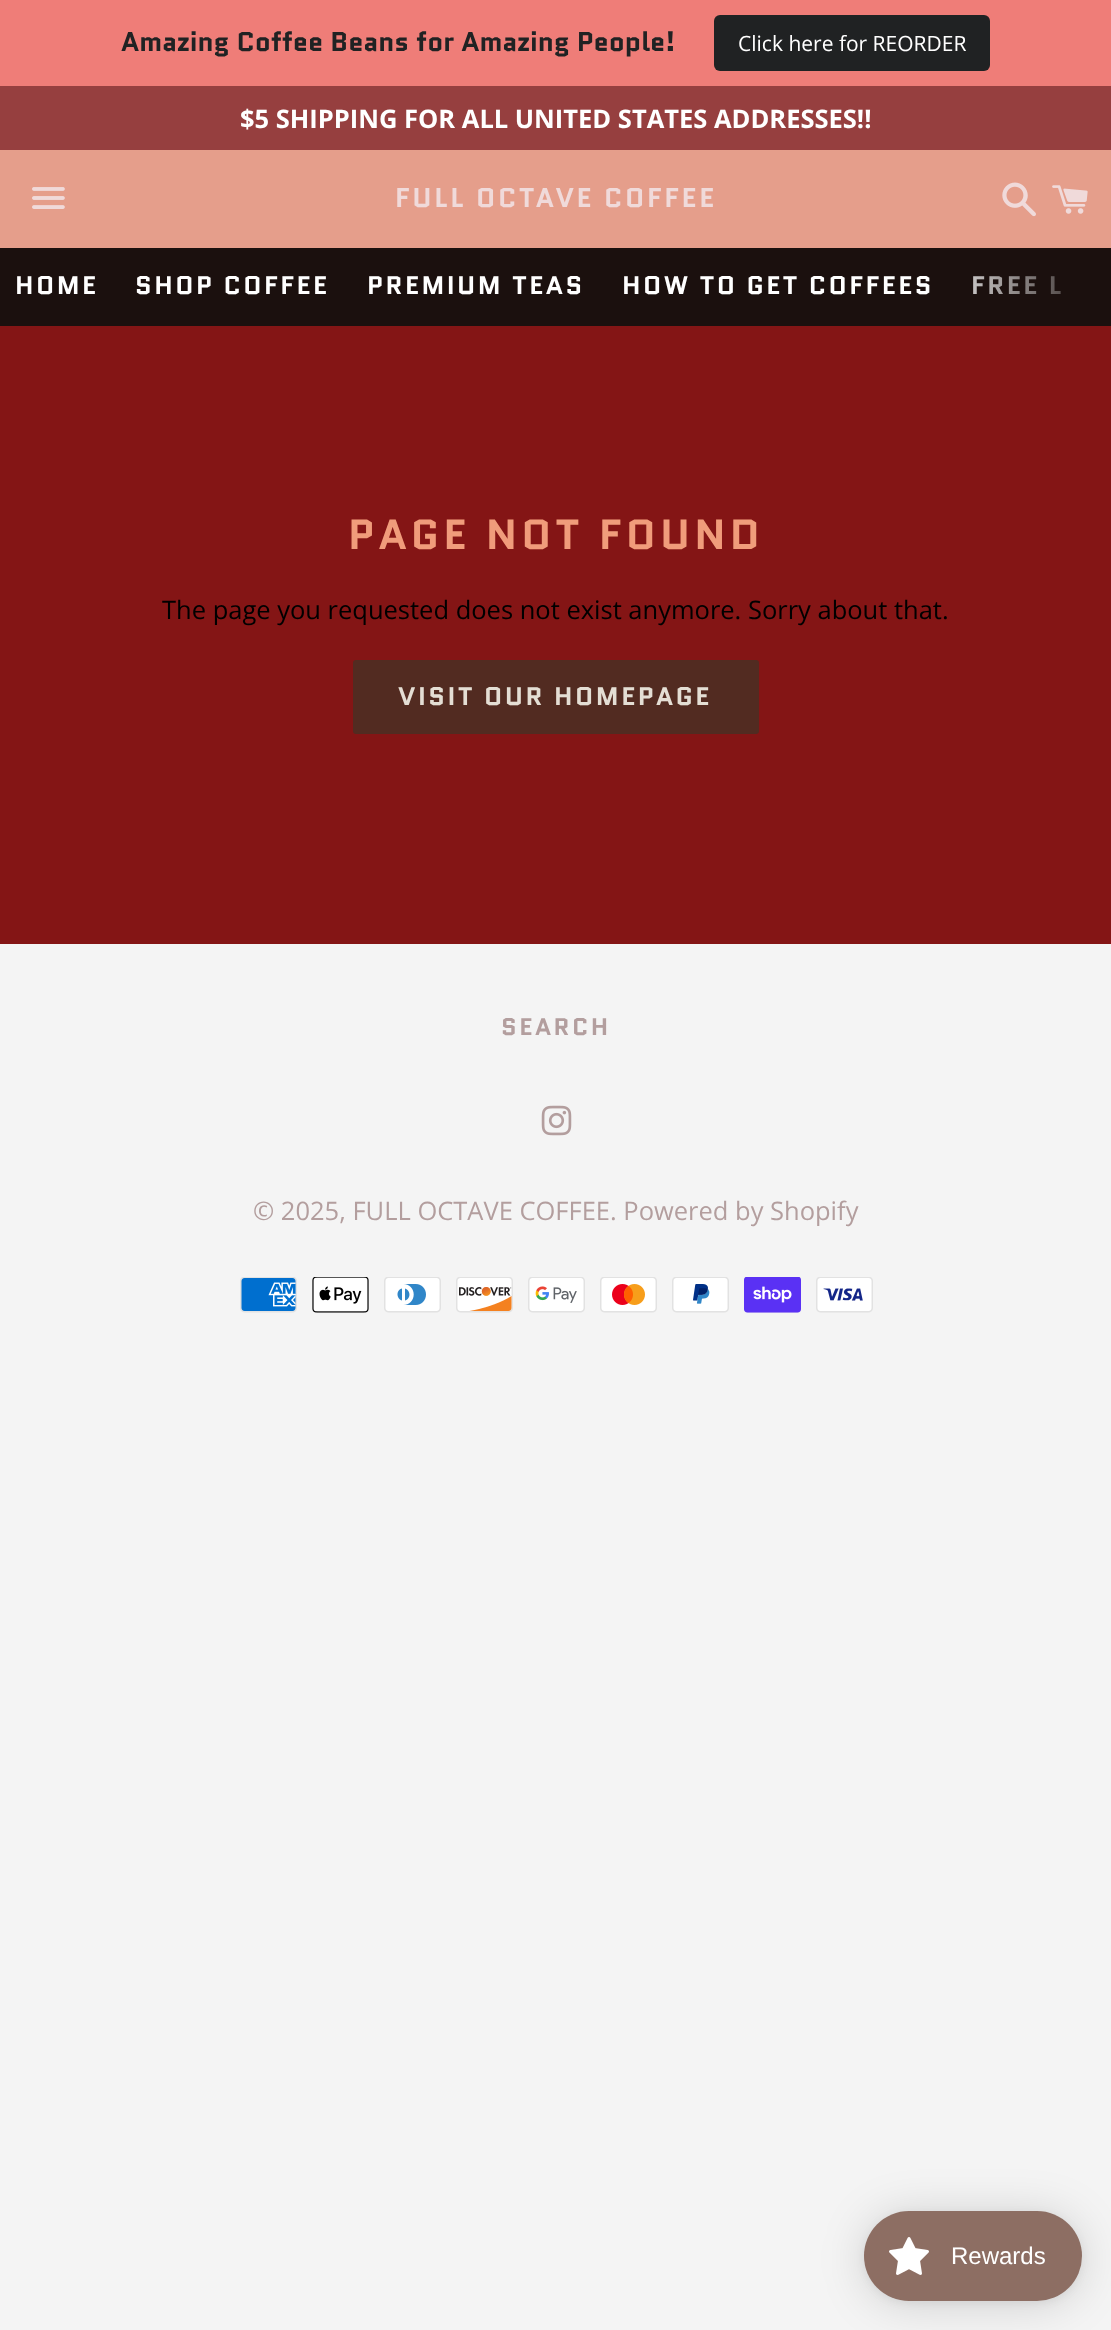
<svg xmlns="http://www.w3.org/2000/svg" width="1111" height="2330">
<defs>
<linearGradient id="g1" gradientUnits="userSpaceOnUse" x1="924" y1="287" x2="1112" y2="287"><stop offset="0" stop-color="#1b100e" stop-opacity="0"/><stop offset="1" stop-color="#1b100e"/></linearGradient>
</defs>
<rect width="100%" height="100%" fill="#f4f4f4"/>
<rect y="326" width="1111" height="618" fill="#841515"/>
<rect width="1111" height="86" fill="#ef7d78"/>
<text x="121" y="51" style="font-family:Quantico;font-size:27px;font-weight:bold;fill:#202223">Amazing Coffee Beans for Amazing People!</text>
<rect x="714" y="15" width="276" height="56" rx="6" fill="#202223"/>
<text x="738" y="51" style="font-family:Open Sans;font-size:21px;fill:#fff">Click here for REORDER</text>
<rect y="86" width="1111" height="64" fill="#963f3f"/>
<text x="240" y="128" style="font-family:Open Sans;font-size:25.5px;font-weight:bold;fill:#fff">$5 SHIPPING FOR ALL UNITED STATES ADDRESSES!!</text>
<rect y="150" width="1111" height="98" fill="#e59e8b"/>
<image x="32" y="187" width="33" height="22" href="media/1.png"/>
<text x="395" y="207" style="font-family:Quantico;font-size:27px;font-weight:bold;letter-spacing:2.75px;fill:#f0dada">FULL OCTAVE COFFEE</text>
<image x="1002" y="182" width="34" height="35" href="media/2.png"/>
<image x="1052" y="185" width="36" height="29" href="media/3.png"/>
<rect y="248" width="1111" height="78" fill="#1b100e"/>
<text x="15" y="294" style="font-family:Quantico;font-size:25.5px;font-weight:bold;letter-spacing:2.5px;fill:#fff">HOME</text>
<text x="135" y="294" style="font-family:Quantico;font-size:25.5px;font-weight:bold;letter-spacing:2.5px;fill:#fff">SHOP COFFEE</text>
<text x="367" y="294" style="font-family:Quantico;font-size:25.5px;font-weight:bold;letter-spacing:2.5px;fill:#fff">PREMIUM TEAS</text>
<text x="622" y="294" style="font-family:Quantico;font-size:25.5px;font-weight:bold;letter-spacing:2.5px;fill:#fff">HOW TO GET COFFEES</text>
<text x="971" y="294" style="font-family:Quantico;font-size:25.5px;font-weight:bold;letter-spacing:2.5px;fill:#fff">FREE L</text>
<rect x="928" y="276" width="134" height="18" fill="url(#g1)"/>
<text x="348" y="549" style="font-family:Quantico;font-size:42px;font-weight:bold;letter-spacing:4.25px;fill:#f09c7b">PAGE NOT FOUND</text>
<text x="162" y="619" style="font-family:Open Sans;font-size:25.5px;fill:#000">The page you requested does not exist anymore. Sorry about that.</text>
<rect x="353" y="660" width="406" height="74" rx="3" fill="#522b21"/>
<text x="398" y="705" style="font-family:Quantico;font-size:25.5px;font-weight:bold;letter-spacing:2.5px;fill:#e4ded4">VISIT OUR HOMEPAGE</text>
<text x="501" y="1035" style="font-family:Quantico;font-size:24px;font-weight:bold;letter-spacing:2.5px;fill:#b39e9e">SEARCH</text>
<image x="541" y="1105" width="31" height="31" href="media/4.png"/>
<text x="253" y="1220" style="font-family:Open Sans;font-size:25.5px;fill:#b39e9e">© 2025, FULL OCTAVE COFFEE. Powered by Shopify</text>
<image x="240" y="1277" width="57" height="36" href="media/5.png"/>
<image x="312" y="1277" width="57" height="36" href="media/6.png"/>
<image x="384" y="1277" width="57" height="36" href="media/7.png"/>
<image x="456" y="1277" width="57" height="36" href="media/8.png"/>
<image x="528" y="1277" width="57" height="36" href="media/9.png"/>
<image x="600" y="1277" width="57" height="36" href="media/10.png"/>
<image x="672" y="1277" width="57" height="36" href="media/11.png"/>
<image x="744" y="1277" width="57" height="36" href="media/12.png"/>
<image x="816" y="1277" width="57" height="36" href="media/13.png"/>
<rect x="864" y="2214" width="218" height="90" rx="45" fill="#00000026" filter="blur(22.5px)"/>
<rect x="864" y="2213" width="218" height="90" rx="45" fill="#0000000d" filter="blur(4.5px)"/>
<rect x="864" y="2211" width="218" height="90" rx="45" fill="#8d6e63"/>
<image x="889" y="2237" width="40" height="38" href="media/14.png"/>
<text x="951" y="2264" style="font-family:Liberation Sans;font-size:24px;fill:#fff">Rewards</text>
</svg>
